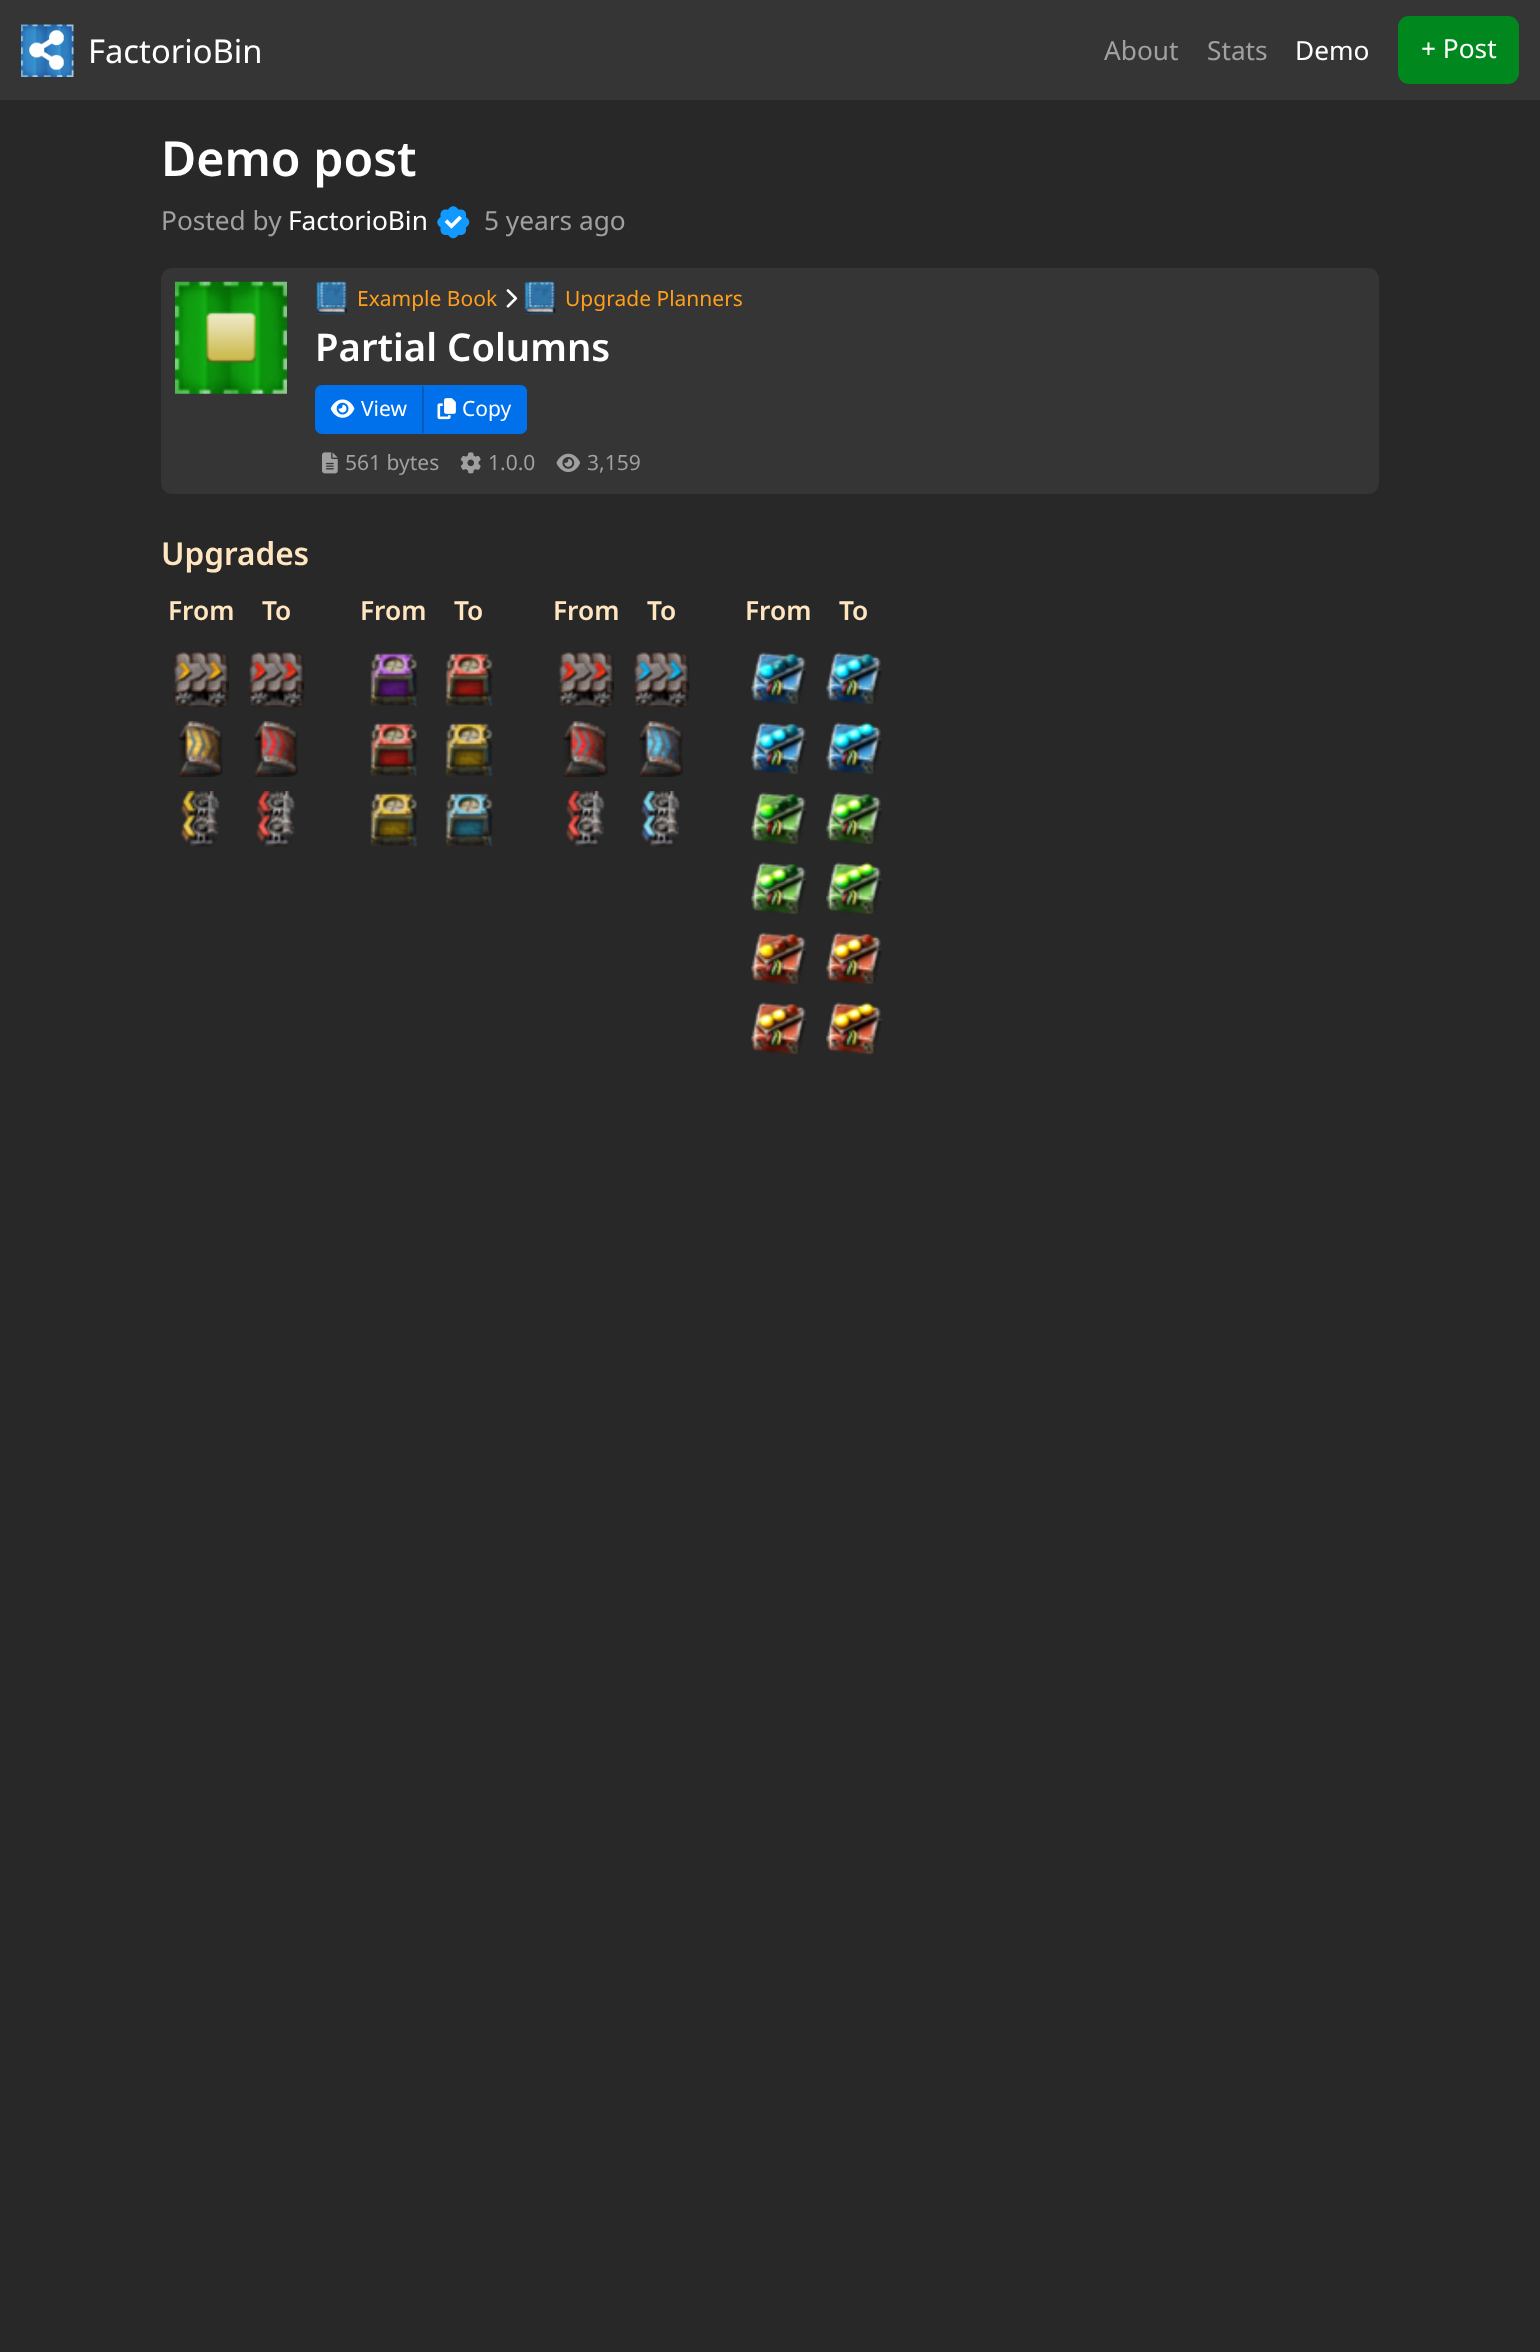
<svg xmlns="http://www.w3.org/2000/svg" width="1540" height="2352">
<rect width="100%" height="100%" fill="#282828"/>
<rect width="1540" height="100" fill="#353535"/>
<image x="21" y="24" width="53" height="53" href="media/1.png"/>
<text x="88" y="63" style="font-family:Noto Sans;font-size:32.75px;fill:#fff">FactorioBin</text>
<text x="1104" y="60" style="font-family:Noto Sans;font-size:26.25px;fill:#a0a0a0">About</text>
<text x="1207" y="60" style="font-family:Noto Sans;font-size:26.25px;fill:#a0a0a0">Stats</text>
<text x="1295" y="60" style="font-family:Noto Sans;font-size:26.25px;fill:#fff">Demo</text>
<rect x="1399" y="17" width="119" height="66" rx="10" fill="#00881f" stroke="#00881f" stroke-width="2"/>
<text x="1421" y="58" style="font-family:Noto Sans;font-size:26.25px;fill:#fff">+ Post</text>
<text x="161" y="176" style="font-family:Noto Sans;font-size:48.25px;font-weight:600;fill:#fff">Demo post</text>
<text x="161" y="230" style="font-family:Noto Sans;font-size:26.25px;fill:#a0a0a0">Posted by</text>
<text x="288" y="230" style="font-family:Noto Sans;font-size:26.25px;fill:#fff">FactorioBin</text>
<image x="437" y="206" width="33" height="33" href="media/2.png"/>
<text x="484" y="230" style="font-family:Noto Sans;font-size:26.25px;fill:#a0a0a0">5 years ago</text>
<rect x="161" y="268" width="1218" height="226" rx="11" fill="#353535"/>
<image x="175" y="281" width="112" height="113" href="media/3.png"/>
<image x="204" y="311" width="54" height="53" href="media/4.png"/>
<image x="316" y="281" width="31" height="34" href="media/5.png"/>
<text x="357" y="306" style="font-family:Noto Sans;font-size:21px;fill:#ff9f1c">Example Book</text>
<image x="506" y="289" width="12" height="19" href="media/6.png"/>
<image x="524" y="281" width="32" height="34" href="media/7.png"/>
<text x="565" y="306" style="font-family:Noto Sans;font-size:21px;fill:#ff9f1c">Upgrade Planners</text>
<text x="315" y="361" style="font-family:Noto Sans;font-size:38.25px;font-weight:600;fill:#fff">Partial Columns</text>
<path d="M322 386h101v47h-101c-3.5 0-6-2.5-6-6v-35c0-3.5 2.5-6 6-6z" fill="#0071eb" stroke="#0071eb" stroke-width="2"/>
<image x="330" y="399" width="25" height="19" href="media/8.png"/>
<text x="361" y="416" style="font-family:Noto Sans;font-size:21px;fill:#fff">View</text>
<path d="M422 385h98c4 0 7 3 7 7v35c0 4-3 7-7 7h-98z" fill="#0071eb"/>
<path d="M422 385l2 2h97l2 1l2-1c-1-1-3-2-5-2z" fill="#0071eb"/>
<path d="M527 429l-2 3l-2-1c1-1 2-2 2-4v-35c0-2-1-3-2-4l2-1l2 3z" fill="#0071eb"/>
<path d="M422 434h99l4-2l-2-1l-2 1h-97z" fill="#0071eb"/>
<path d="M422 385v49l2-2v-45z" fill="#005abc"/>
<image x="437" y="398" width="19" height="22" href="media/9.png"/>
<text x="462" y="416" style="font-family:Noto Sans;font-size:21px;fill:#fff">Copy</text>
<image x="322" y="452" width="16" height="22" href="media/10.png"/>
<text x="345" y="470" style="font-family:Noto Sans;font-size:21px;fill:#a0a0a0">561 bytes</text>
<image x="460" y="452" width="21" height="22" href="media/11.png"/>
<text x="488" y="470" style="font-family:Noto Sans;font-size:21px;fill:#a0a0a0">1.0.0</text>
<image x="556" y="453" width="25" height="19" href="media/12.png"/>
<text x="587" y="470" style="font-family:Noto Sans;font-size:21px;fill:#a0a0a0">3,159</text>
<text x="161" y="565" style="font-family:Noto Sans;font-size:31.5px;font-weight:600;fill:#ffe6c0">Upgrades</text>
<text x="168" y="620" style="font-family:Noto Sans;font-size:26.25px;font-weight:600;fill:#ffe6c0">From</text>
<text x="262" y="620" style="font-family:Noto Sans;font-size:26.25px;font-weight:600;fill:#ffe6c0">To</text>
<image x="173" y="651" width="56" height="56" href="media/13.png"/>
<image x="249" y="651" width="56" height="56" href="media/14.png"/>
<image x="178" y="721" width="45" height="56" href="media/15.png"/>
<image x="254" y="721" width="44" height="56" href="media/16.png"/>
<image x="180" y="791" width="40" height="56" href="media/17.png"/>
<image x="255" y="791" width="40" height="56" href="media/18.png"/>
<text x="360" y="620" style="font-family:Noto Sans;font-size:26.25px;font-weight:600;fill:#ffe6c0">From</text>
<text x="454" y="620" style="font-family:Noto Sans;font-size:26.25px;font-weight:600;fill:#ffe6c0">To</text>
<image x="370" y="652" width="48" height="55" href="media/19.png"/>
<image x="445" y="652" width="48" height="55" href="media/20.png"/>
<image x="370" y="722" width="48" height="55" href="media/21.png"/>
<image x="445" y="722" width="48" height="55" href="media/22.png"/>
<image x="370" y="792" width="48" height="55" href="media/23.png"/>
<image x="445" y="792" width="48" height="55" href="media/24.png"/>
<text x="553" y="620" style="font-family:Noto Sans;font-size:26.25px;font-weight:600;fill:#ffe6c0">From</text>
<text x="647" y="620" style="font-family:Noto Sans;font-size:26.25px;font-weight:600;fill:#ffe6c0">To</text>
<image x="558" y="651" width="56" height="56" href="media/25.png"/>
<image x="634" y="651" width="56" height="56" href="media/26.png"/>
<image x="563" y="721" width="45" height="56" href="media/27.png"/>
<image x="639" y="721" width="44" height="56" href="media/28.png"/>
<image x="565" y="791" width="40" height="56" href="media/29.png"/>
<image x="640" y="791" width="40" height="56" href="media/30.png"/>
<text x="745" y="620" style="font-family:Noto Sans;font-size:26.25px;font-weight:600;fill:#ffe6c0">From</text>
<text x="839" y="620" style="font-family:Noto Sans;font-size:26.25px;font-weight:600;fill:#ffe6c0">To</text>
<image x="751" y="652" width="56" height="53" href="media/31.png"/>
<image x="826" y="652" width="56" height="53" href="media/32.png"/>
<image x="751" y="722" width="56" height="53" href="media/33.png"/>
<image x="826" y="722" width="56" height="53" href="media/34.png"/>
<image x="751" y="792" width="56" height="53" href="media/35.png"/>
<image x="826" y="792" width="56" height="53" href="media/36.png"/>
<image x="751" y="862" width="56" height="53" href="media/37.png"/>
<image x="826" y="862" width="56" height="53" href="media/38.png"/>
<image x="751" y="932" width="56" height="53" href="media/39.png"/>
<image x="826" y="932" width="56" height="53" href="media/40.png"/>
<image x="751" y="1002" width="56" height="53" href="media/41.png"/>
<image x="826" y="1002" width="56" height="54" href="media/42.png"/>
</svg>
